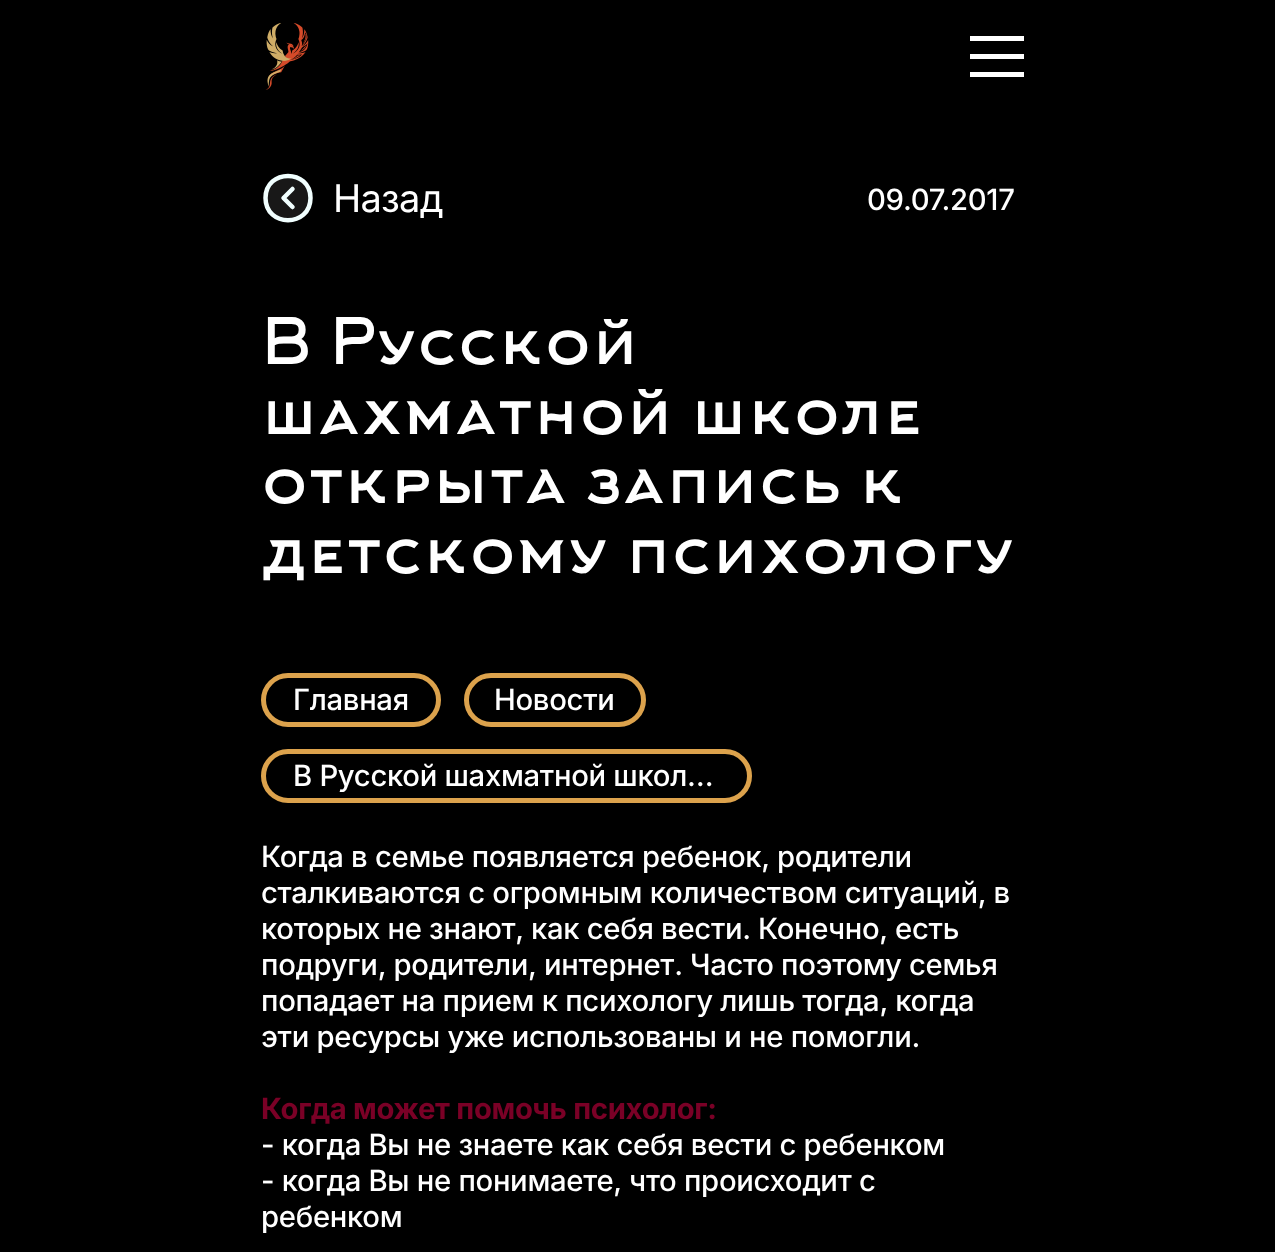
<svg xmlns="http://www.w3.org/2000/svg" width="1275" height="1252">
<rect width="100%" height="100%" fill="#000"/>
<image x="265" y="23" width="44" height="67" href="media/1.png"/>
<rect x="970" y="36" width="54" height="5" fill="#fff"/>
<rect x="970" y="54" width="54" height="5" fill="#fff"/>
<rect x="970" y="72" width="54" height="5" fill="#fff"/>
<path d="M266 198c0 30 44 30 44 0c0-30-44-30-44 0z" fill="#181818"/>
<path d="M265.5 198c0 29.5 45 29.5 45 0c0-29.5-45-29.5-45 0zm27-9l-9 9l9 9" fill="none" stroke="#f1ffff" stroke-width="4.5" stroke-linecap="round" stroke-linejoin="round"/>
<text x="333" y="212" style="font-family:Inter;font-size:38px;letter-spacing:-0.75px;fill:#fff">Назад</text>
<text x="867" y="210" style="font-family:Inter;font-size:29.25px;font-weight:500;letter-spacing:-0.3px;fill:#fff">09.07.2017</text>
<text x="261" y="364" style="font-family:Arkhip;font-size:63px;fill:#fff">В Русской</text>
<text x="261" y="434" style="font-family:Arkhip;font-size:63px;fill:#fff">шахматной школе</text>
<text x="261" y="503" style="font-family:Arkhip;font-size:63px;fill:#fff">открыта запись к</text>
<text x="261" y="573" style="font-family:Arkhip;font-size:63px;fill:#fff">детскому психологу</text>
<rect x="263.5" y="675.5" width="175" height="49" rx="24.5" fill="none" stroke="#dca24c" stroke-width="5"/>
<text x="293" y="710" style="font-family:Inter;font-size:29.25px;font-weight:500;letter-spacing:-0.3px;fill:#fff">Главная</text>
<rect x="466.5" y="675.5" width="177" height="49" rx="24.5" fill="none" stroke="#dca24c" stroke-width="5"/>
<text x="494" y="710" style="font-family:Inter;font-size:29.25px;font-weight:500;letter-spacing:-0.3px;fill:#fff">Новости</text>
<rect x="263.5" y="751.5" width="486" height="49" rx="24.5" fill="none" stroke="#dca24c" stroke-width="5"/>
<text x="293" y="786" style="font-family:Inter;font-size:29.25px;font-weight:500;letter-spacing:-0.3px;fill:#fff">В Русской шахматной школ…</text>
<text x="261" y="867" style="font-family:Inter;font-size:29.25px;font-weight:500;letter-spacing:-0.3px;fill:#fff">Когда в семье появляется ребенок, родители</text>
<text x="261" y="903" style="font-family:Inter;font-size:29.25px;font-weight:500;letter-spacing:-0.3px;fill:#fff">сталкиваются с огромным количеством ситуаций, в</text>
<text x="261" y="939" style="font-family:Inter;font-size:29.25px;font-weight:500;letter-spacing:-0.3px;fill:#fff">которых не знают, как себя вести. Конечно, есть</text>
<text x="261" y="975" style="font-family:Inter;font-size:29.25px;font-weight:500;letter-spacing:-0.3px;fill:#fff">подруги, родители, интернет. Часто поэтому семья</text>
<text x="261" y="1011" style="font-family:Inter;font-size:29.25px;font-weight:500;letter-spacing:-0.3px;fill:#fff">попадает на прием к психологу лишь тогда, когда</text>
<text x="261" y="1047" style="font-family:Inter;font-size:29.25px;font-weight:500;letter-spacing:-0.3px;fill:#fff">эти ресурсы уже использованы и не помогли.</text>
<text x="261" y="1119" style="font-family:Inter;font-size:29.25px;font-weight:bold;letter-spacing:-0.3px;fill:#7a0026">Когда может помочь психолог:</text>
<text x="261" y="1155" style="font-family:Inter;font-size:29.25px;font-weight:500;letter-spacing:-0.3px;fill:#fff">- когда Вы не знаете как себя вести с ребенком</text>
<text x="261" y="1191" style="font-family:Inter;font-size:29.25px;font-weight:500;letter-spacing:-0.3px;fill:#fff">- когда Вы не понимаете, что происходит с</text>
<text x="261" y="1227" style="font-family:Inter;font-size:29.25px;font-weight:500;letter-spacing:-0.3px;fill:#fff">ребенком</text>
</svg>
